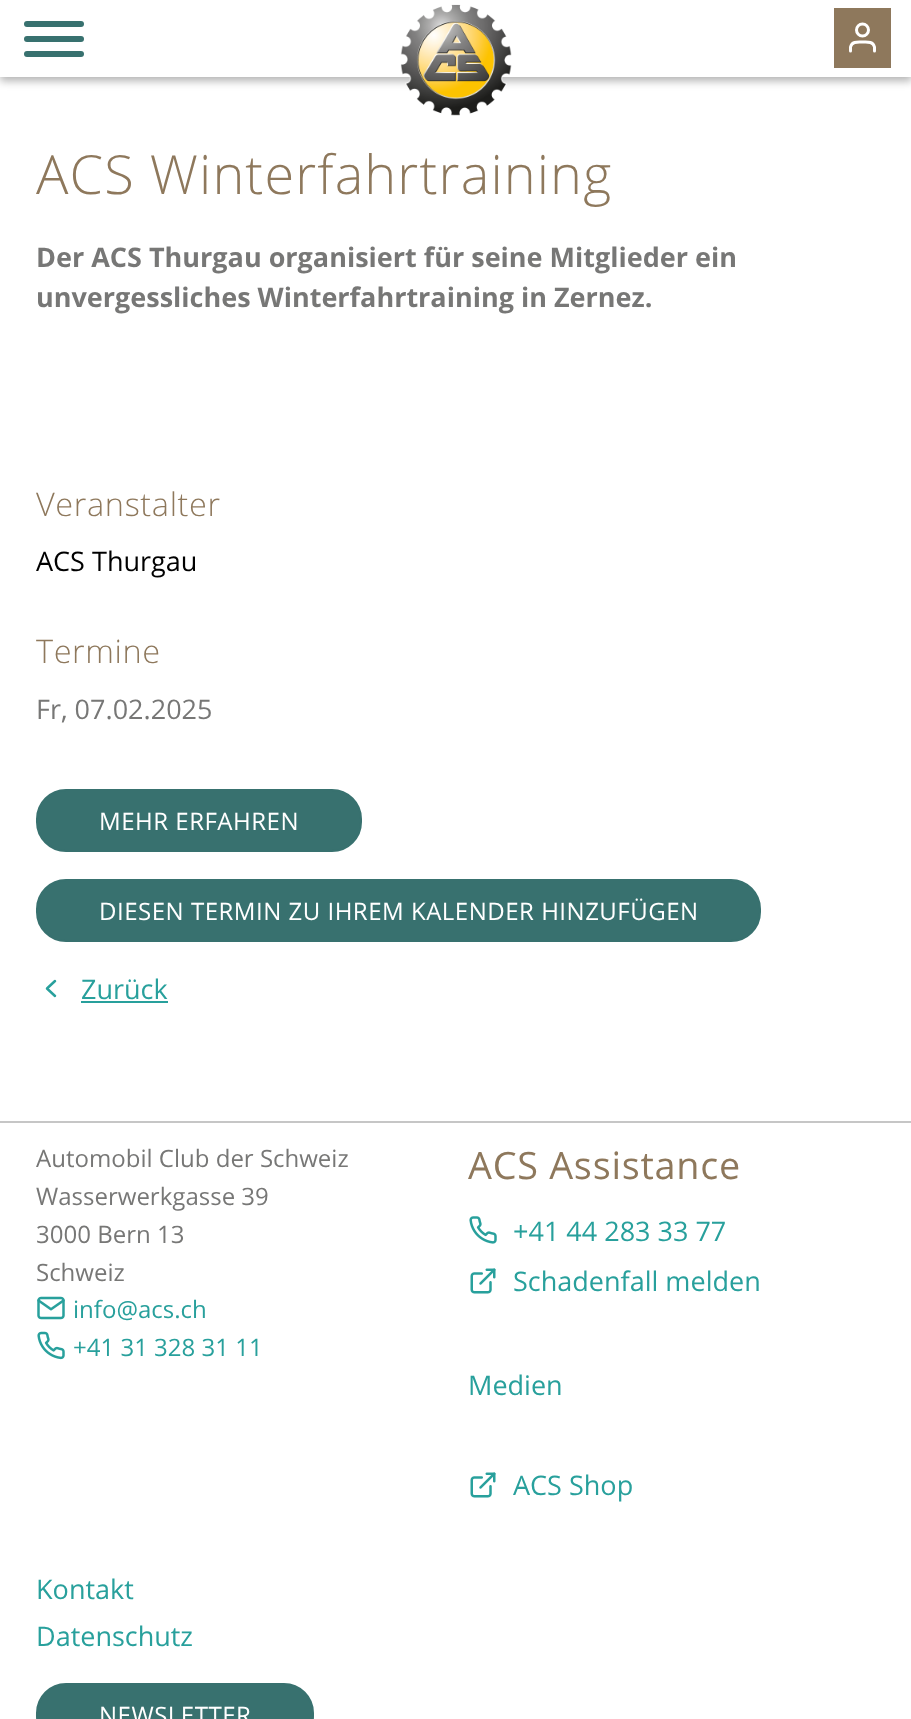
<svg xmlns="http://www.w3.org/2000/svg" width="911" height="1719">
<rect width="100%" height="100%" fill="#fff"/>
<rect y="5" width="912" height="76" fill="#0000004d" filter="blur(4.5px)"/>
<rect width="911" height="77" fill="#fff"/>
<rect x="24" y="36" width="60" height="6" rx="3" fill="#38716f"/>
<rect x="24" y="21" width="60" height="6" rx="3" fill="#38716f"/>
<rect x="24" y="51" width="60" height="6" rx="3" fill="#38716f"/>
<image x="400" y="4" width="112" height="112" href="media/1.png"/>
<rect x="834" y="8" width="57" height="60" fill="#8e785c"/>
<path d="M874.5 51v-4c-1.5-6-7.5-5-12-5c-4.5 0-10.5-1-12 5v4" fill="none" stroke="#fff" stroke-width="3" stroke-linecap="round" stroke-linejoin="round"/>
<circle cx="862.5" cy="30" r="6" fill="none" stroke="#fff" stroke-width="3"/>
<text x="36" y="194" style="font-family:Open Sans;font-size:54px;font-weight:300;letter-spacing:1.1px;fill:#8e785c">ACS Winterfahrtraining</text>
<text x="36" y="267" style="font-family:Open Sans;font-size:27px;font-weight:bold;fill:#777776">Der ACS Thurgau organisiert für seine Mitglieder ein</text>
<text x="36" y="307" style="font-family:Open Sans;font-size:27px;font-weight:bold;fill:#777776">unvergessliches Winterfahrtraining in Zernez.</text>
<text x="36" y="516" style="font-family:Open Sans;font-size:32.5px;font-weight:300;letter-spacing:0.6px;fill:#8e785c">Veranstalter</text>
<text x="36" y="571" style="font-family:Open Sans;font-size:27px;fill:#000">ACS Thurgau</text>
<text x="36" y="663" style="font-family:Open Sans;font-size:32.5px;font-weight:300;letter-spacing:0.6px;fill:#8e785c">Termine</text>
<text x="36" y="719" style="font-family:Open Sans;font-size:27px;fill:#777776">Fr, 07.02.2025</text>
<rect x="37" y="790" width="324" height="61" rx="29" fill="#38716f" stroke="#38716f" stroke-width="2"/>
<text x="99" y="830" style="font-family:Open Sans;font-size:24px;letter-spacing:0.5px;fill:#fff">MEHR ERFAHREN</text>
<rect x="37" y="880" width="723" height="61" rx="29" fill="#38716f" stroke="#38716f" stroke-width="2"/>
<text x="99" y="920" style="font-family:Open Sans;font-size:24px;letter-spacing:0.5px;fill:#fff">DIESEN TERMIN ZU IHREM KALENDER HINZUFÜGEN</text>
<path d="M55 996l-8-7.5l8-7.5" fill="none" stroke="#28a09c" stroke-width="2.5" stroke-linecap="round" stroke-linejoin="round"/>
<text x="81" y="999" style="font-family:Open Sans;font-size:27px;fill:#28a09c">Zurück</text>
<rect x="81" y="1001" width="87" height="2" fill="#28a09c"/>
<rect y="1121" width="911" height="2" fill="#c6c6c6"/>
<text x="36" y="1167" style="font-family:Open Sans;font-size:24px;fill:#777776">Automobil Club der Schweiz</text>
<text x="36" y="1205" style="font-family:Open Sans;font-size:24px;fill:#777776">Wasserwerkgasse 39</text>
<text x="36" y="1243" style="font-family:Open Sans;font-size:24px;fill:#777776">3000 Bern 13</text>
<text x="36" y="1281" style="font-family:Open Sans;font-size:24px;fill:#777776">Schweiz</text>
<image x="37" y="1296" width="28" height="24" href="media/2.png"/>
<text x="73" y="1318" style="font-family:Open Sans;font-size:24px;fill:#28a09c">info@acs.ch</text>
<image x="37" y="1331" width="28" height="29" href="media/3.png"/>
<text x="73" y="1356" style="font-family:Open Sans;font-size:24px;fill:#28a09c">+41 31 328 31 11</text>
<text x="468" y="1179" style="font-family:Open Sans;font-size:37.75px;letter-spacing:0.75px;fill:#8e785c">ACS Assistance</text>
<image x="469" y="1216" width="28" height="28" href="media/4.png"/>
<text x="513" y="1241" style="font-family:Open Sans;font-size:27px;fill:#28a09c">+41 44 283 33 77</text>
<image x="470" y="1268" width="26" height="26" href="media/5.png"/>
<text x="513" y="1291" style="font-family:Open Sans;font-size:27px;fill:#28a09c">Schadenfall melden</text>
<text x="468" y="1395" style="font-family:Open Sans;font-size:27px;fill:#28a09c">Medien</text>
<image x="470" y="1472" width="26" height="26" href="media/5.png"/>
<text x="513" y="1495" style="font-family:Open Sans;font-size:27px;fill:#28a09c">ACS Shop</text>
<text x="36" y="1599" style="font-family:Open Sans;font-size:27px;fill:#28a09c">Kontakt</text>
<text x="36" y="1646" style="font-family:Open Sans;font-size:27px;fill:#28a09c">Datenschutz</text>
<rect x="37" y="1684" width="276" height="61" rx="29" fill="#38716f" stroke="#38716f" stroke-width="2"/>
<text x="99" y="1724" style="font-family:Open Sans;font-size:24px;letter-spacing:0.5px;fill:#fff">NEWSLETTER</text>
</svg>
